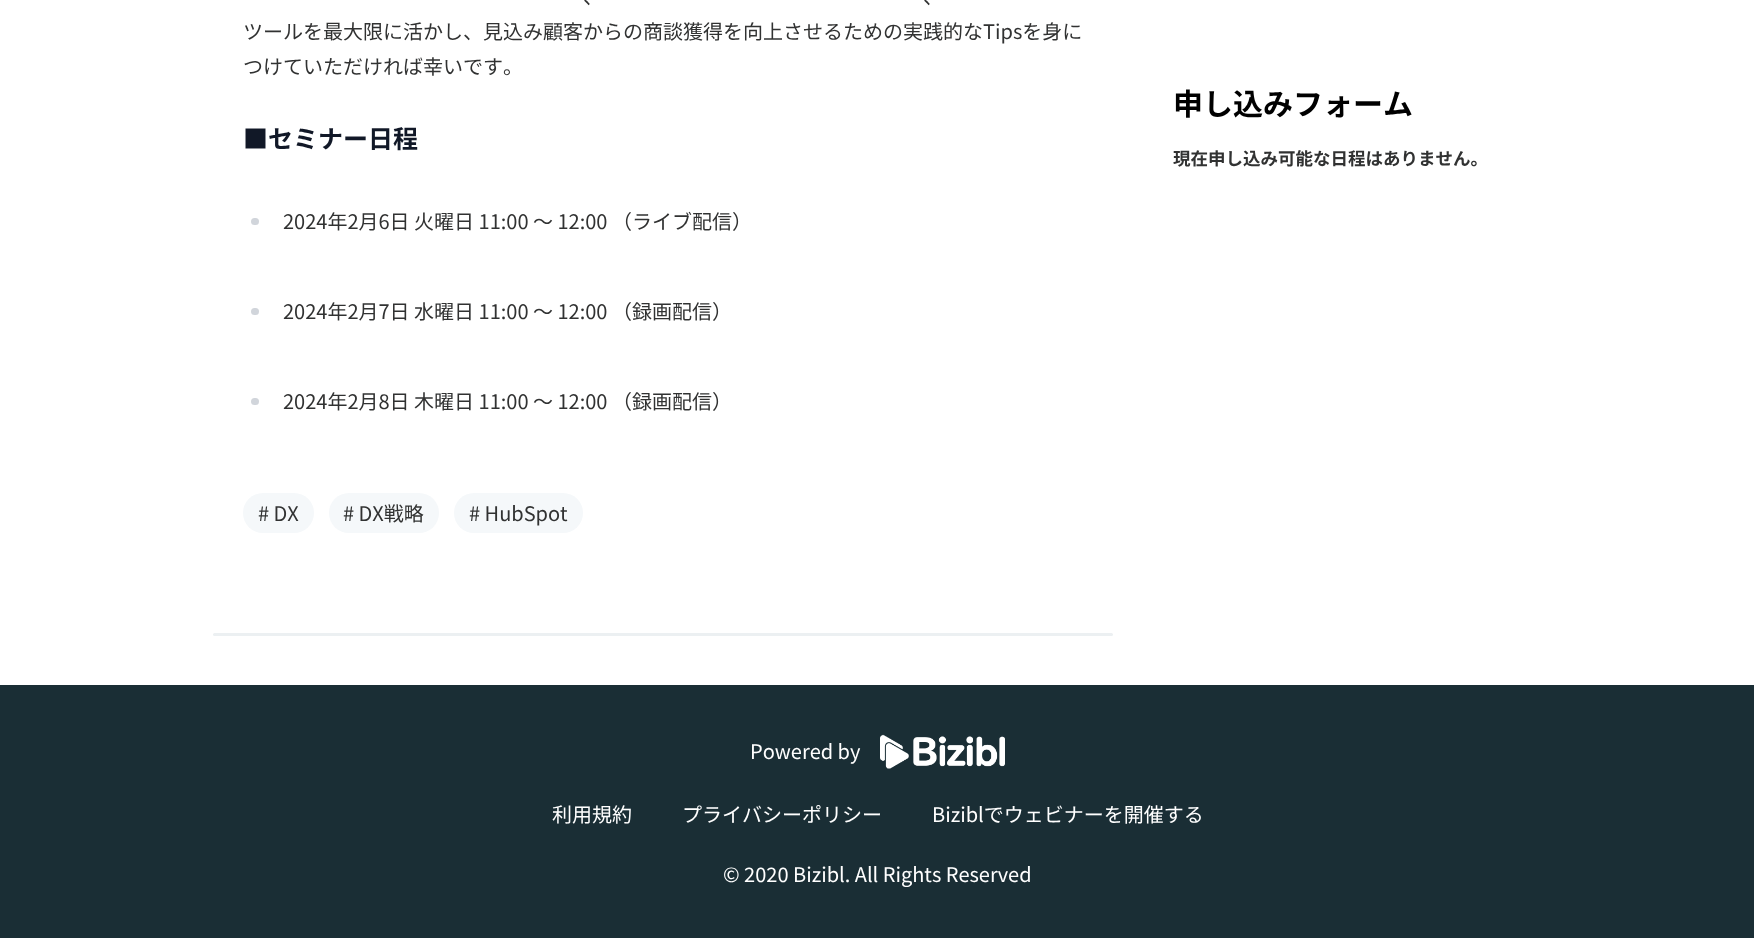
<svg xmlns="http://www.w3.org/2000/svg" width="1754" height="938">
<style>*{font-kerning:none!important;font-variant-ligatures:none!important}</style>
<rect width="100%" height="100%" fill="#fff"/>
<text x="583" y="4" style="font-family:Noto Sans JP;font-size:20px;fill:#313232">、</text>
<text x="923" y="4" style="font-family:Noto Sans JP;font-size:20px;fill:#313232">、</text>
<text x="243" y="39" style="font-family:Noto Sans JP;font-size:20px;fill:#313232">ツールを最大限に活かし、見込み顧客からの商談獲得を向上させるための実践的なTipsを身に</text>
<text x="243" y="74" style="font-family:Noto Sans JP;font-size:20px;fill:#313232">つけていただければ幸いです。</text>
<text x="243" y="148" style="font-family:Noto Sans JP;font-size:25px;font-weight:bold;fill:#111827">■セミナー日程</text>
<rect x="251" y="218" width="8" height="7" rx="3.5" fill="#d1d5db"/>
<text x="283" y="229" style="font-family:Noto Sans JP;font-size:20px;fill:#313232">2024年2月6日 火曜日 11:00 〜 12:00 （ライブ配信）</text>
<rect x="251" y="308" width="8" height="7" rx="3.5" fill="#d1d5db"/>
<text x="283" y="319" style="font-family:Noto Sans JP;font-size:20px;fill:#313232">2024年2月7日 水曜日 11:00 〜 12:00 （録画配信）</text>
<rect x="251" y="398" width="8" height="7" rx="3.5" fill="#d1d5db"/>
<text x="283" y="409" style="font-family:Noto Sans JP;font-size:20px;fill:#313232">2024年2月8日 木曜日 11:00 〜 12:00 （録画配信）</text>
<rect x="243" y="493" width="71" height="40" rx="20" fill="#f5f8fa"/>
<text x="258" y="521" style="font-family:Noto Sans JP;font-size:20px;fill:#313232"># DX</text>
<rect x="329" y="493" width="110" height="40" rx="20" fill="#f5f8fa"/>
<text x="343" y="521" style="font-family:Noto Sans JP;font-size:20px;fill:#313232"># DX戦略</text>
<rect x="454" y="493" width="129" height="40" rx="20" fill="#f5f8fa"/>
<text x="469" y="521" style="font-family:Noto Sans JP;font-size:20px;fill:#313232"># HubSpot</text>
<rect x="213" y="633" width="900" height="3" rx="1.5" fill="#ecf0f2"/>
<text x="1173" y="115" style="font-family:Noto Sans JP;font-size:30px;font-weight:bold;fill:#000">申し込みフォーム</text>
<text x="1173" y="165" style="font-family:Noto Sans JP;font-size:17.5px;font-weight:bold;fill:#313232">現在申し込み可能な日程はありません。</text>
<rect y="685" width="1754" height="253" fill="#1a2e35"/>
<text x="750" y="759" style="font-family:Noto Sans JP;font-size:20px;fill:#fff">Powered by</text>
<image x="880" y="734" width="125" height="35" href="media/1.png"/>
<text x="552" y="822" style="font-family:Noto Sans JP;font-size:20px;fill:#fff">利用規約</text>
<text x="682" y="822" style="font-family:Noto Sans JP;font-size:20px;fill:#fff">プライバシーポリシー</text>
<text x="932" y="822" style="font-family:Noto Sans JP;font-size:20px;fill:#fff">Biziblでウェビナーを開催する</text>
<text x="723" y="882" style="font-family:Noto Sans JP;font-size:20px;fill:#fff">© 2020 Bizibl. All Rights Reserved</text>
</svg>
